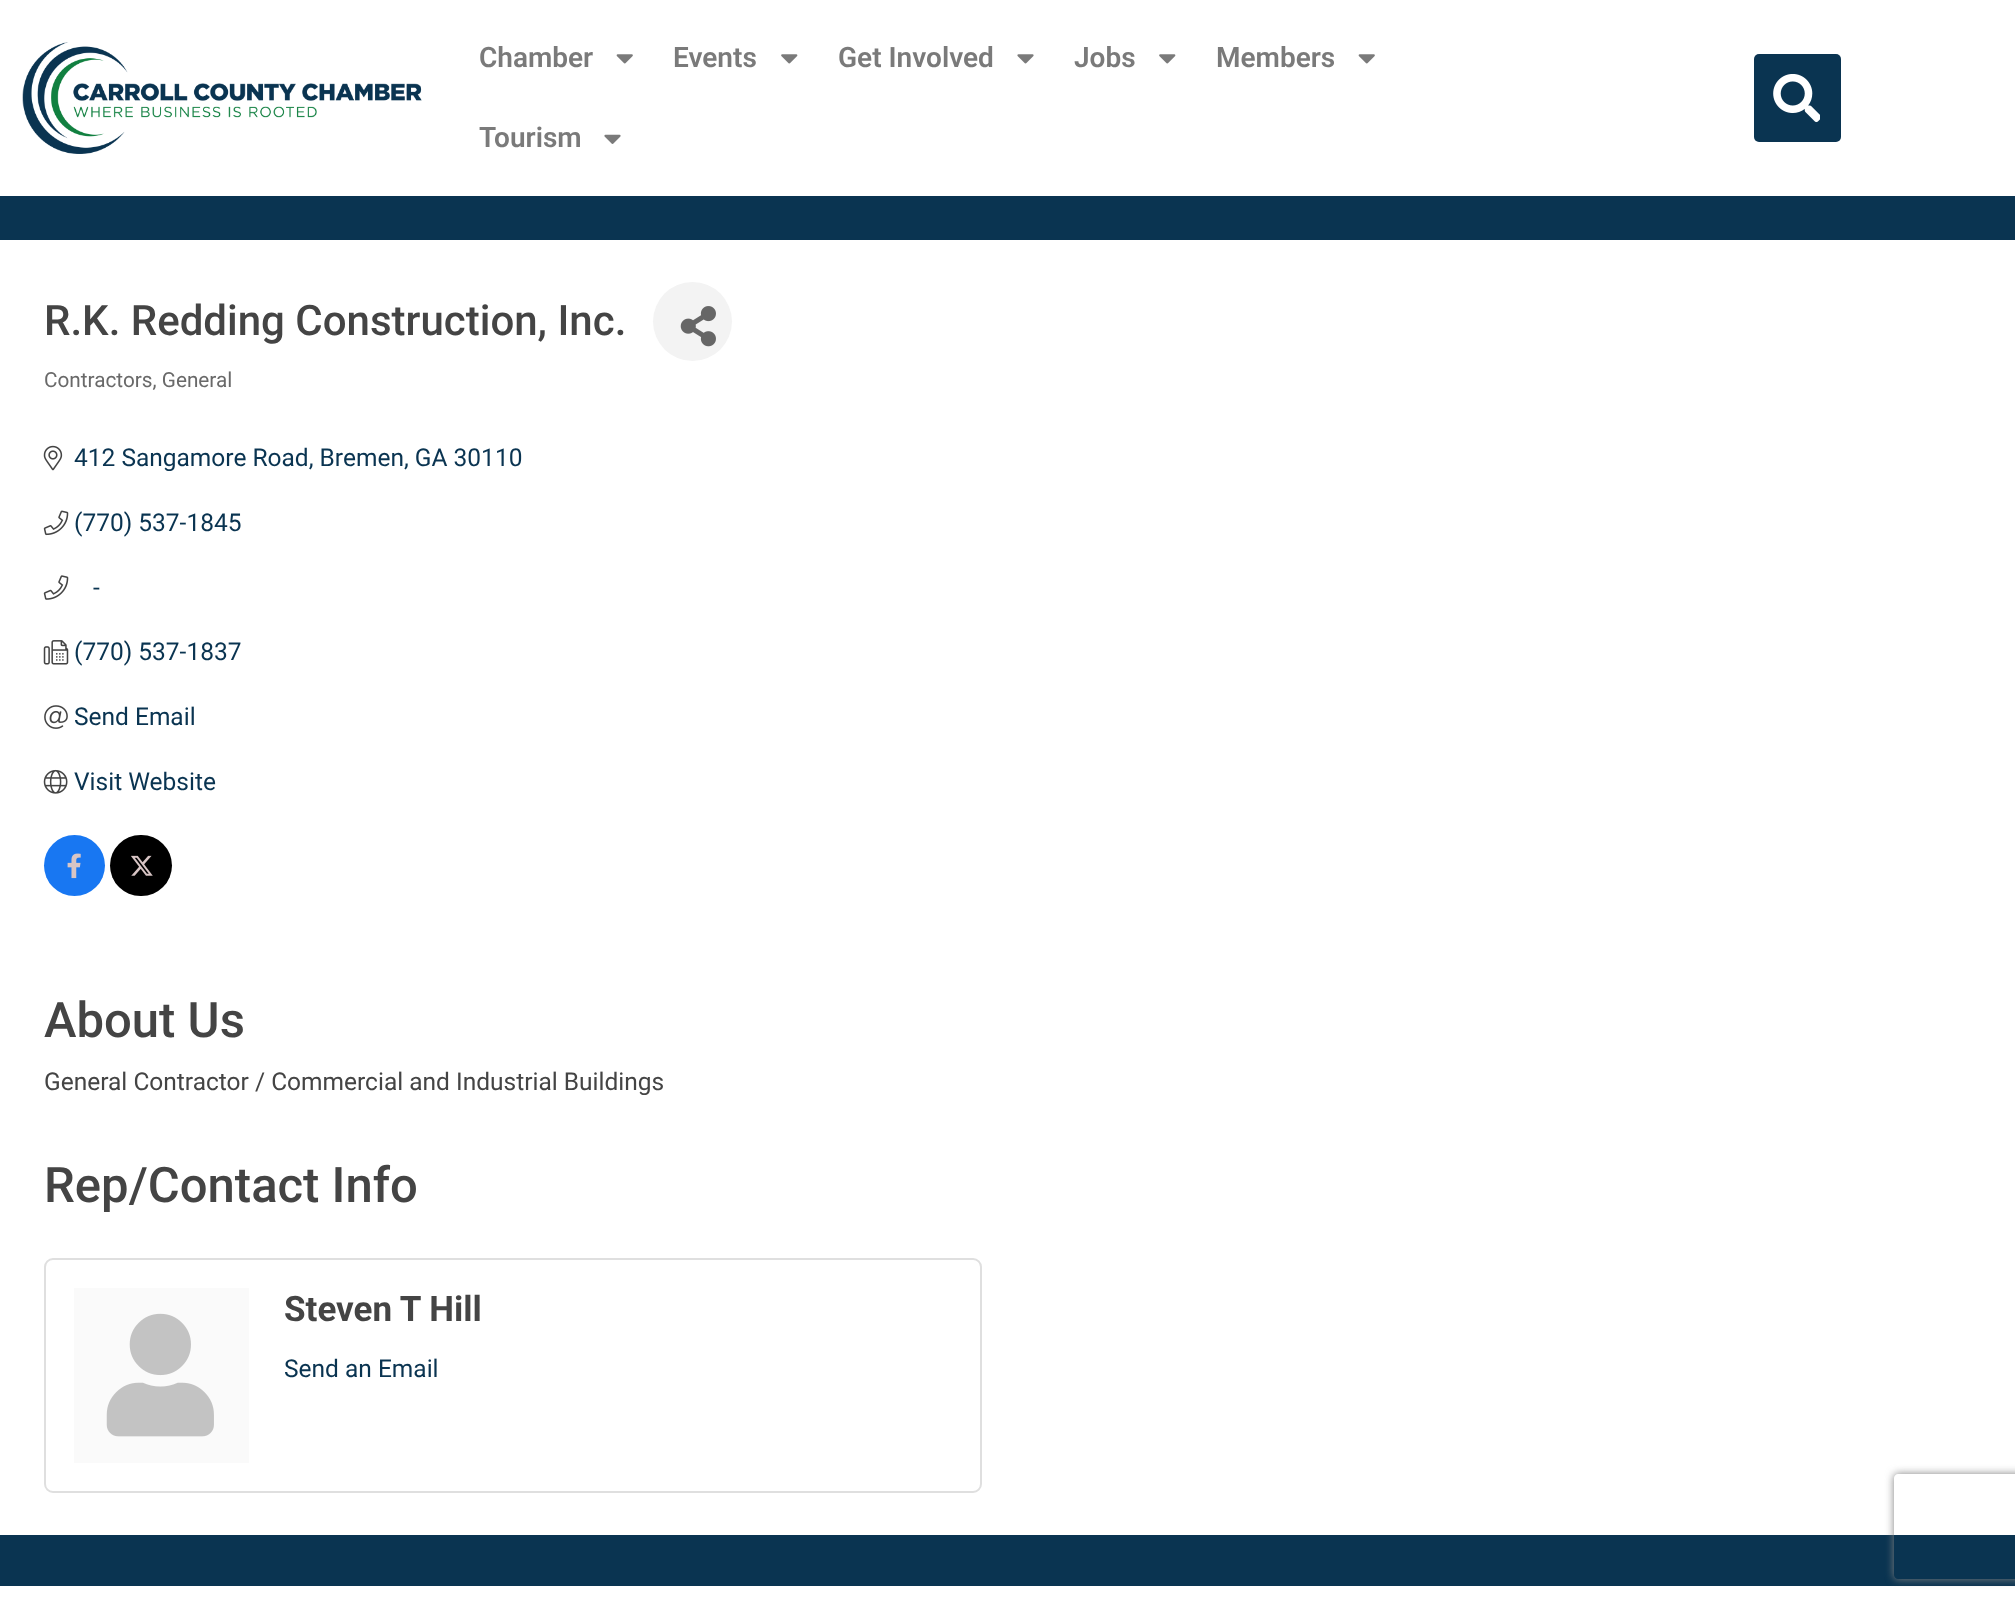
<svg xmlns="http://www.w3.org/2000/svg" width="2015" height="1603">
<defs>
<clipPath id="clip1"><path d="M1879 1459h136v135h-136zm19 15h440c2 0 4 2 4 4v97c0 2-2 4-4 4h-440c-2 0-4-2-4-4v-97c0-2 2-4 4-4z" clip-rule="evenodd"/></clipPath>
</defs>
<rect width="100%" height="100%" fill="#fff"/>
<image x="22" y="42" width="400" height="112" href="media/1.png"/>
<text x="479" y="67" style="font-family:Roboto;font-size:28px;font-weight:600;fill:#7a7a7a">Chamber</text>
<image x="616" y="54" width="17" height="10" href="media/2.png"/>
<text x="673" y="67" style="font-family:Roboto;font-size:28px;font-weight:600;fill:#7a7a7a">Events</text>
<image x="781" y="54" width="17" height="10" href="media/3.png"/>
<text x="838" y="67" style="font-family:Roboto;font-size:28px;font-weight:600;fill:#7a7a7a">Get Involved</text>
<image x="1017" y="54" width="17" height="10" href="media/4.png"/>
<text x="1074" y="67" style="font-family:Roboto;font-size:28px;font-weight:600;fill:#7a7a7a">Jobs</text>
<image x="1159" y="54" width="17" height="10" href="media/3.png"/>
<text x="1216" y="67" style="font-family:Roboto;font-size:28px;font-weight:600;fill:#7a7a7a">Members</text>
<image x="1358" y="54" width="17" height="10" href="media/2.png"/>
<text x="479" y="147" style="font-family:Roboto;font-size:28px;font-weight:600;fill:#7a7a7a">Tourism</text>
<image x="604" y="134" width="17" height="10" href="media/5.png"/>
<rect x="1754" y="54" width="87" height="88" rx="5" fill="#0a3451"/>
<image x="1773" y="74" width="47" height="49" href="media/6.png"/>
<rect y="196" width="2015" height="44" fill="#0a3451"/>
<text x="44" y="335" style="font-family:Roboto;font-size:42px;font-weight:500;fill:#444">R.K. Redding Construction, Inc.</text>
<circle cx="692.5" cy="321.5" r="39.5" fill="#f3f3f3"/>
<image x="680" y="306" width="36" height="41" href="media/7.png"/>
<text x="44" y="387" style="font-family:Roboto;font-size:20.75px;fill:#696969">Contractors, General</text>
<image x="43" y="445" width="20" height="26" href="media/8.png"/>
<text x="74" y="466" style="font-family:Roboto;font-size:24.5px;fill:#0a3451">412 Sangamore Road, Bremen, GA 30110</text>
<image x="43" y="510" width="26" height="26" href="media/9.png"/>
<text x="74" y="531" style="font-family:Roboto;font-size:24.5px;fill:#0a3451">(770) 537-1845</text>
<image x="43" y="575" width="26" height="25" href="media/10.png"/>
<text x="93" y="596" style="font-family:Roboto;font-size:24.5px;fill:#0a3451">-</text>
<image x="43" y="640" width="26" height="25" href="media/11.png"/>
<text x="74" y="660" style="font-family:Roboto;font-size:24.5px;fill:#0a3451">(770) 537-1837</text>
<image x="44" y="705" width="24" height="24" href="media/12.png"/>
<text x="74" y="725" style="font-family:Roboto;font-size:24.5px;fill:#0a3451">Send Email</text>
<image x="43" y="769" width="25" height="25" href="media/13.png"/>
<text x="74" y="790" style="font-family:Roboto;font-size:24.5px;fill:#0a3451">Visit Website</text>
<circle cx="74.5" cy="865.5" r="30.5" fill="#1877f2"/>
<image x="67" y="853" width="14" height="26" href="media/14.png"/>
<rect x="110" y="835" width="62" height="61" rx="30.5" fill="#000"/>
<image x="131" y="855" width="22" height="21" href="media/15.png"/>
<text x="44" y="1037" style="font-family:Roboto;font-size:49px;font-weight:500;fill:#444">About Us</text>
<text x="44" y="1090" style="font-family:Roboto;font-size:24.5px;fill:#444">General Contractor / Commercial and Industrial Buildings</text>
<text x="44" y="1202" style="font-family:Roboto;font-size:49px;font-weight:500;fill:#444">Rep/Contact Info</text>
<rect x="45" y="1259" width="936" height="233" rx="8" fill="none" stroke="#dfdfdf" stroke-width="2"/>
<rect x="74" y="1288" width="175" height="175" fill="#fafafa"/>
<image x="106" y="1313" width="108" height="124" href="media/16.png"/>
<text x="284" y="1321" style="font-family:Roboto;font-size:35px;font-weight:bold;fill:#444">Steven T Hill</text>
<text x="284" y="1377" style="font-family:Roboto;font-size:24.5px;fill:#0a3451">Send an Email</text>
<rect y="1535" width="2015" height="51" fill="#0a3451"/>
<g clip-path="url(#clip1)">
<rect x="1894" y="1474" width="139" height="105" rx="4" fill="#808080" filter="blur(4.5px)"/>
</g>
</svg>
